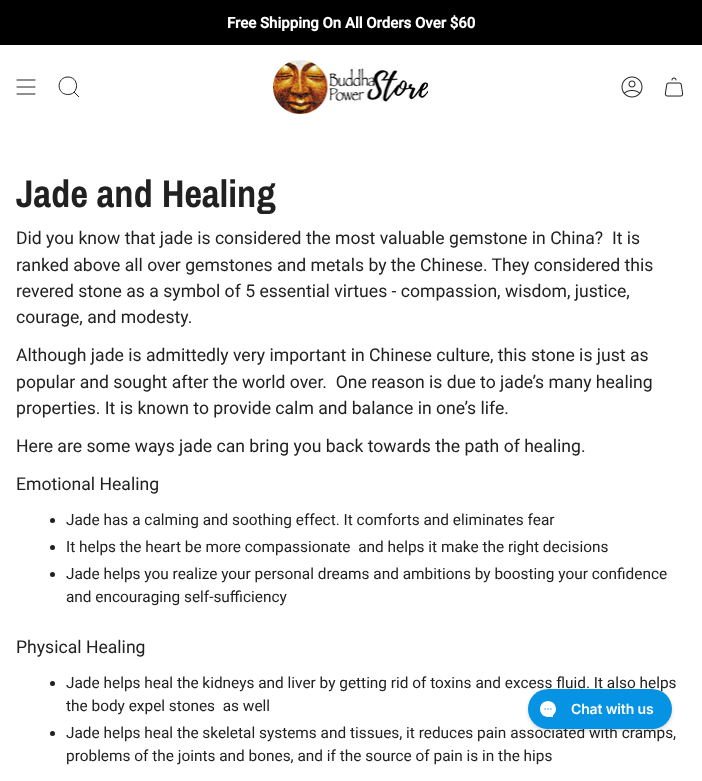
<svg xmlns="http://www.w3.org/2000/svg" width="702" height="781">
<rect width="100%" height="100%" fill="#fff"/>
<rect width="702" height="45" fill="#000"/>
<text x="227" y="28" style="font-family:Roboto;font-size:15px;font-weight:bold;fill:#fff">Free Shipping On All Orders Over $60</text>
<path d="M17 80h18m-18 7h18m-18 7h18" fill="none" stroke="#212121" stroke-linecap="round" stroke-linejoin="round"/>
<path d="M68 77c11.5 0 11.5 18-.5 17.5c-11.5-.5-11-17.5 .5-17.5zm6 15l5 5" fill="none" stroke="#212121"/>
<image x="273" y="60" width="155" height="54" href="media/1.png"/>
<image x="621" y="76" width="22" height="22" href="media/2.png"/>
<image x="664" y="77" width="20" height="20" href="media/3.png"/>
<text x="16" y="207" style="font-family:Archivo Narrow;font-size:38.5px;font-weight:bold;fill:#212121">Jade and Healing</text>
<text x="16" y="244" style="font-family:Roboto;font-size:17.6px;fill:#212121" xml:space="preserve">Did you know that jade is considered the most valuable gemstone in China?  It is</text>
<text x="16" y="271" style="font-family:Roboto;font-size:17.6px;fill:#212121">ranked above all over gemstones and metals by the Chinese. They considered this</text>
<text x="16" y="297" style="font-family:Roboto;font-size:17.6px;fill:#212121">revered stone as a symbol of 5 essential virtues - compassion, wisdom, justice,</text>
<text x="16" y="323" style="font-family:Roboto;font-size:17.6px;fill:#212121">courage, and modesty.</text>
<text x="16" y="361" style="font-family:Roboto;font-size:17.6px;fill:#212121">Although jade is admittedly very important in Chinese culture, this stone is just as</text>
<text x="16" y="388" style="font-family:Roboto;font-size:17.6px;fill:#212121" xml:space="preserve">popular and sought after the world over.  One reason is due to jade’s many healing</text>
<text x="16" y="414" style="font-family:Roboto;font-size:17.6px;fill:#212121">properties. It is known to provide calm and balance in one’s life.</text>
<text x="16" y="452" style="font-family:Roboto;font-size:17.6px;fill:#212121">Here are some ways jade can bring you back towards the path of healing.</text>
<text x="16" y="490" style="font-family:Roboto;font-size:17.6px;fill:#212121">Emotional Healing</text>
<circle cx="52.5" cy="520.5" r="2.5" fill="#212121"/>
<text x="66" y="525" style="font-family:Roboto;font-size:15.4px;fill:#212121">Jade has a calming and soothing effect. It comforts and eliminates fear</text>
<circle cx="52.5" cy="547.5" r="2.5" fill="#212121"/>
<text x="66" y="552" style="font-family:Roboto;font-size:15.4px;fill:#212121" xml:space="preserve">It helps the heart be more compassionate  and helps it make the right decisions</text>
<circle cx="52.5" cy="574.5" r="2.5" fill="#212121"/>
<text x="66" y="579" style="font-family:Roboto;font-size:15.4px;fill:#212121">Jade helps you realize your personal dreams and ambitions by boosting your confidence</text>
<text x="66" y="602" style="font-family:Roboto;font-size:15.4px;fill:#212121">and encouraging self-sufficiency</text>
<text x="16" y="653" style="font-family:Roboto;font-size:17.6px;fill:#212121">Physical Healing</text>
<circle cx="52.5" cy="683.5" r="2.5" fill="#212121"/>
<text x="66" y="688" style="font-family:Roboto;font-size:15.4px;fill:#212121">Jade helps heal the kidneys and liver by getting rid of toxins and excess fluid. It also helps</text>
<text x="66" y="711" style="font-family:Roboto;font-size:15.4px;fill:#212121" xml:space="preserve">the body expel stones  as well</text>
<circle cx="52.5" cy="733.5" r="2.5" fill="#212121"/>
<text x="66" y="738" style="font-family:Roboto;font-size:15.4px;fill:#212121">Jade helps heal the skeletal systems and tissues, it reduces pain associated with cramps,</text>
<text x="66" y="761" style="font-family:Roboto;font-size:15.4px;fill:#212121">problems of the joints and bones, and if the source of pain is in the hips</text>
<image x="526" y="689" width="148" height="44" href="media/4.png"/>
</svg>
